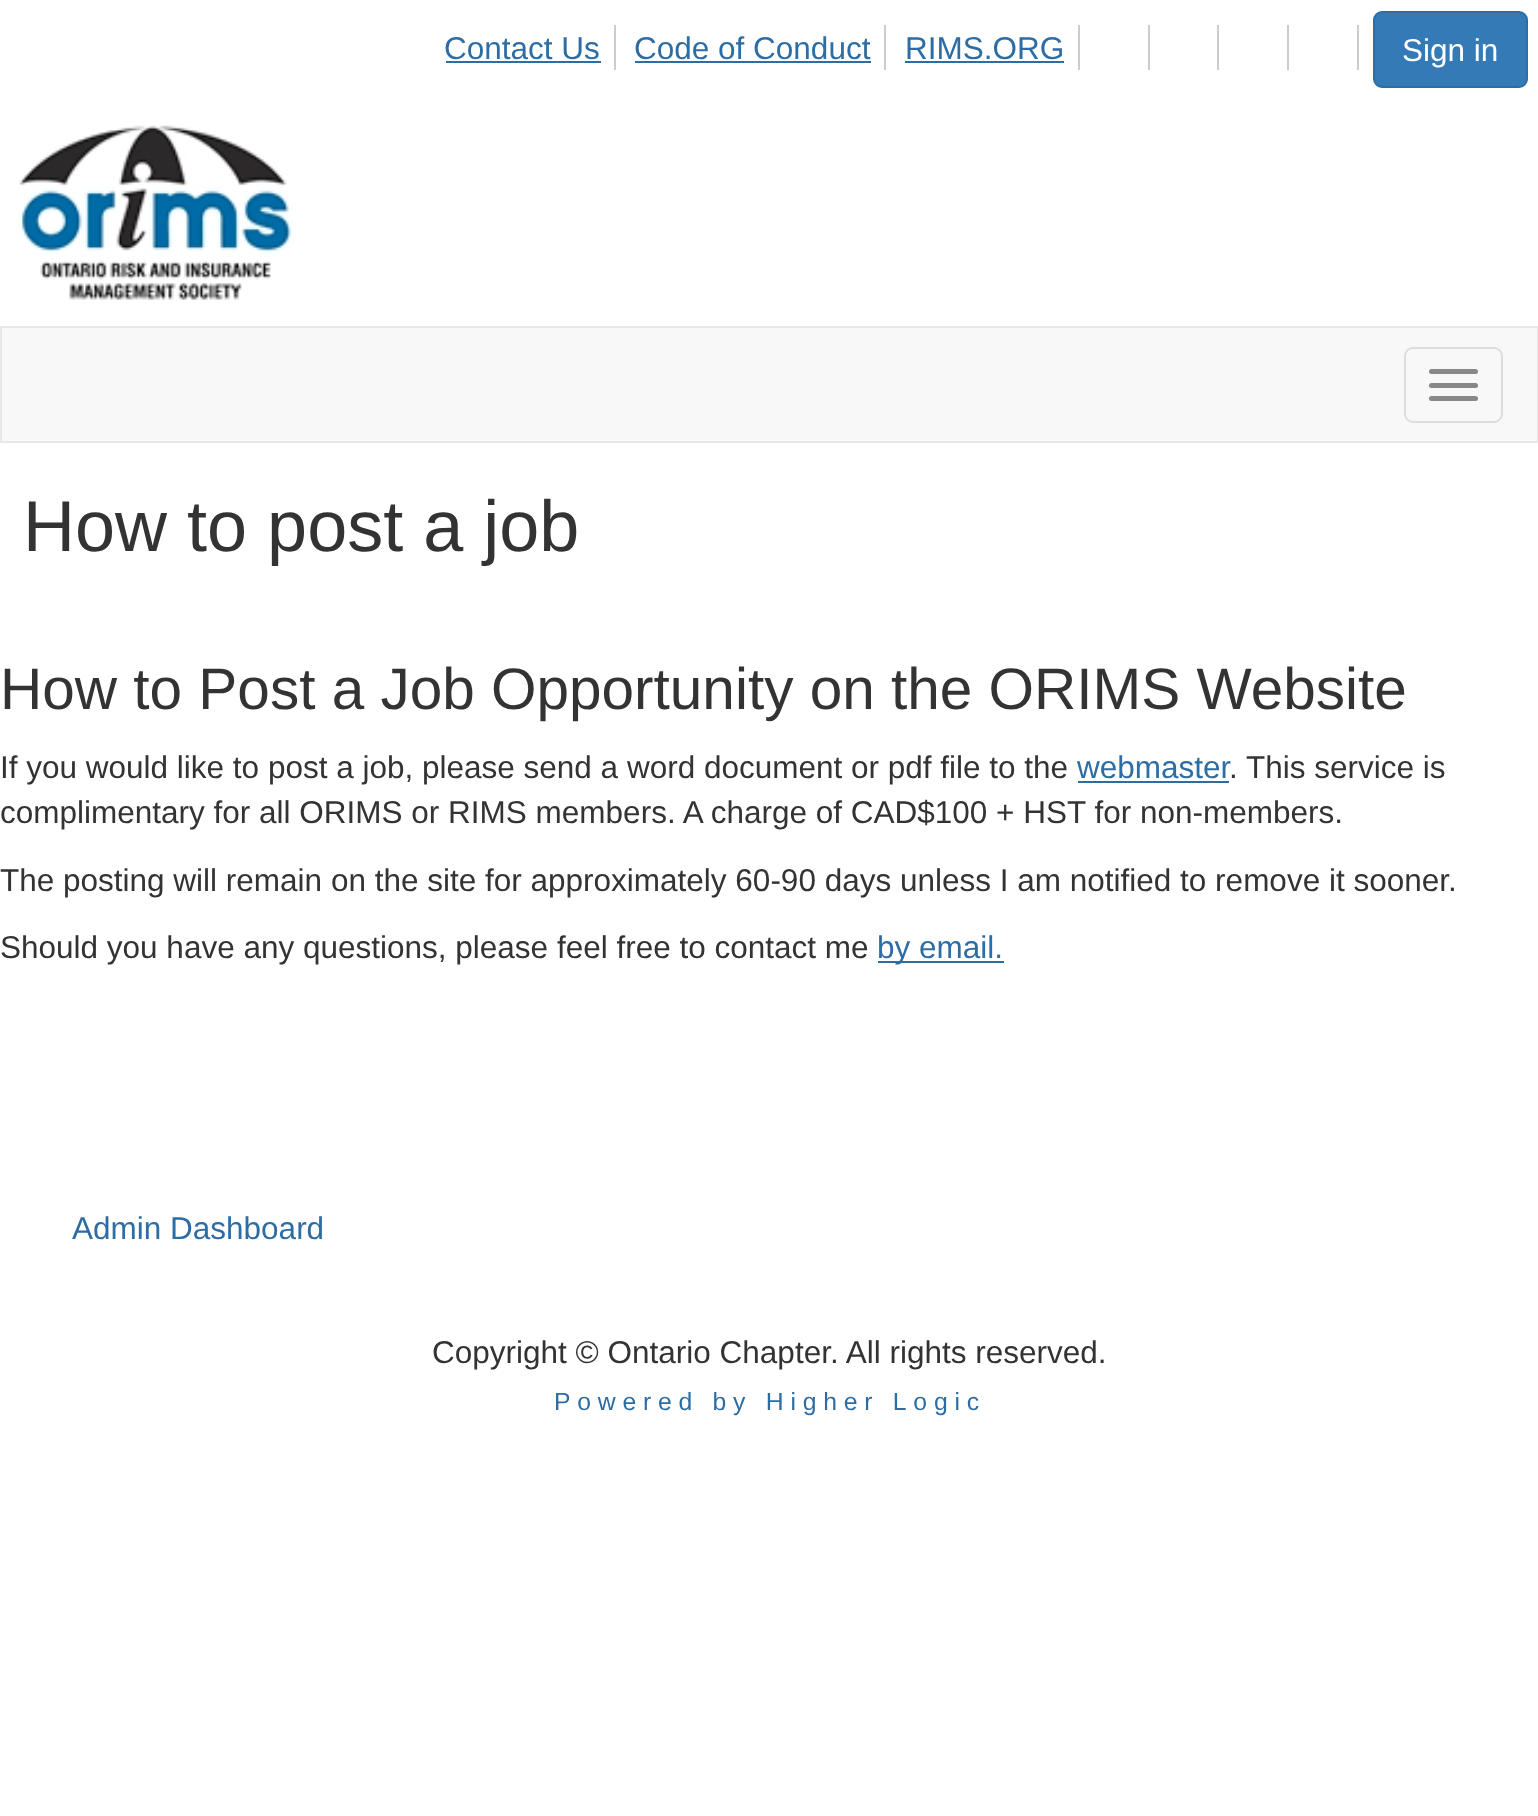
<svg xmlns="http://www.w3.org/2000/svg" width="1538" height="1816">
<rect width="100%" height="100%" fill="#fff"/>
<rect x="614" y="25" width="2" height="45" fill="#ccc"/>
<text x="444" y="59" style="font-family:Liberation Sans;font-size:31.5px;fill:#2e6da4">Contact Us</text>
<rect x="446" y="61" width="155" height="2" fill="#2e6da4"/>
<rect x="884" y="25" width="2" height="45" fill="#ccc"/>
<text x="634" y="59" style="font-family:Liberation Sans;font-size:31.5px;fill:#2e6da4">Code of Conduct</text>
<rect x="635" y="61" width="236" height="2" fill="#2e6da4"/>
<rect x="1078" y="25" width="2" height="45" fill="#ccc"/>
<text x="905" y="59" style="font-family:Liberation Sans;font-size:31.5px;fill:#2e6da4">RIMS.ORG</text>
<rect x="905" y="61" width="159" height="2" fill="#2e6da4"/>
<rect x="1148" y="25" width="2" height="45" fill="#ccc"/>
<rect x="1217" y="25" width="2" height="45" fill="#ccc"/>
<rect x="1287" y="25" width="2" height="45" fill="#ccc"/>
<rect x="1357" y="25" width="2" height="45" fill="#ccc"/>
<rect x="1374" y="12" width="153" height="75" rx="8" fill="#337ab7" stroke="#2e6da4" stroke-width="2"/>
<text x="1402" y="61" style="font-family:Liberation Sans;font-size:31.5px;fill:#fff">Sign in</text>
<image x="18" y="125" width="275" height="175" href="media/1.png"/>
<rect x="1" y="327" width="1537" height="115" fill="#f8f8f8" stroke="#e7e7e7" stroke-width="2"/>
<rect x="1405" y="348" width="97" height="74" rx="8" fill="none" stroke="#ddd" stroke-width="2"/>
<rect x="1429" y="369" width="49" height="5" rx="2.5" fill="#888"/>
<rect x="1429" y="383" width="49" height="5" rx="2.5" fill="#888"/>
<rect x="1429" y="396" width="49" height="5" rx="2.5" fill="#888"/>
<text x="23" y="551" style="font-family:Liberation Sans;font-size:72px;fill:#333">How to post a job</text>
<text x="0" y="709" style="font-family:Liberation Sans;font-size:58.5px;fill:#333">How to Post a Job Opportunity on the ORIMS Website</text>
<text x="0" y="778" style="font-family:Liberation Sans;font-size:31.5px;fill:#333">If you would like to post a job, please send a word document or pdf file to the</text>
<text x="1077" y="778" style="font-family:Liberation Sans;font-size:31.5px;fill:#2e6da4">webmaster</text>
<rect x="1078" y="781" width="151" height="2" fill="#2e6da4"/>
<text x="1229" y="778" style="font-family:Liberation Sans;font-size:31.5px;fill:#333">. This service is</text>
<text x="0" y="823" style="font-family:Liberation Sans;font-size:31.5px;fill:#333">complimentary for all ORIMS or RIMS members. A charge of CAD$100 + HST for non-members.</text>
<text x="0" y="891" style="font-family:Liberation Sans;font-size:31.5px;fill:#333">The posting will remain on the site for approximately 60-90 days unless I am notified to remove it sooner.</text>
<text x="0" y="958" style="font-family:Liberation Sans;font-size:31.5px;fill:#333">Should you have any questions, please feel free to contact me</text>
<rect x="878" y="961" width="126" height="2" fill="#2e6da4"/>
<text x="877" y="958" style="font-family:Liberation Sans;font-size:31.5px;fill:#2e6da4">by email.</text>
<text x="72" y="1239" style="font-family:Liberation Sans;font-size:31.5px;fill:#2e6da4">Admin Dashboard</text>
<text x="432" y="1363" style="font-family:Liberation Sans;font-size:31.5px;fill:#333">Copyright © Ontario Chapter. All rights reserved.</text>
<text x="554" y="1410" style="font-family:Liberation Sans;font-size:24.75px;letter-spacing:6.75px;fill:#2e6da4">Powered by Higher Logic</text>
</svg>
